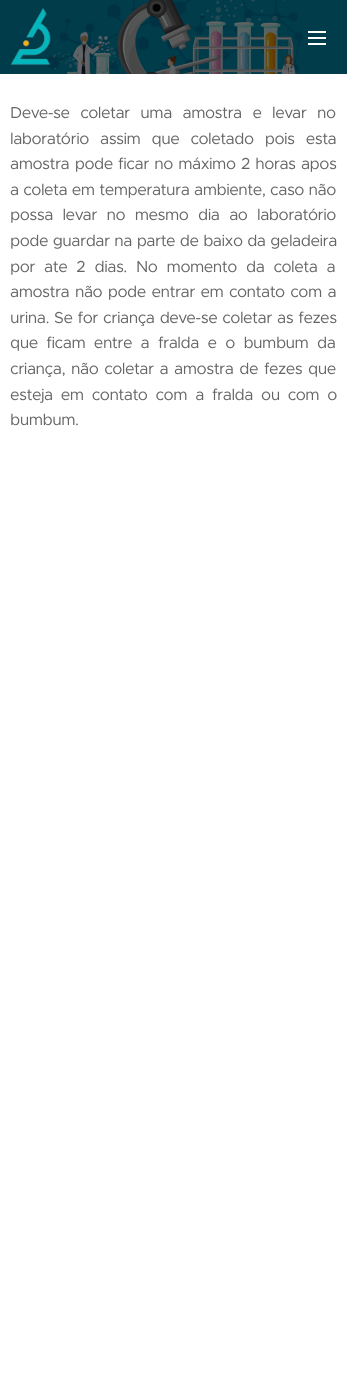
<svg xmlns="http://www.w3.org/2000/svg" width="347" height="1385">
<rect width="100%" height="100%" fill="#fff"/>
<image x="0" y="0" width="347" height="74" href="media/1.png"/>
<image x="10" y="8" width="41" height="57" href="media/2.png"/>
<rect x="308" y="37" width="18" height="2" fill="#fff"/>
<rect x="308" y="31" width="18" height="2" fill="#fff"/>
<rect x="308" y="43" width="18" height="2" fill="#fff"/>
<text x="10" y="118" word-spacing="6.5" style="font-family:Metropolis;font-size:16px;letter-spacing:-0.5px;fill:#666">Deve-se coletar uma amostra e levar no</text>
<text x="10" y="144" word-spacing="7" style="font-family:Metropolis;font-size:16px;letter-spacing:-0.5px;fill:#666">laboratório assim que coletado pois esta</text>
<text x="10" y="169" word-spacing="1.25" style="font-family:Metropolis;font-size:16px;letter-spacing:-0.5px;fill:#666">amostra pode ficar no máximo 2 horas apos</text>
<text x="10" y="195" word-spacing="0.5" style="font-family:Metropolis;font-size:16px;letter-spacing:-0.5px;fill:#666">a coleta em temperatura ambiente, caso não</text>
<text x="10" y="220" word-spacing="5.5" style="font-family:Metropolis;font-size:16px;letter-spacing:-0.5px;fill:#666">possa levar no mesmo dia ao laboratório</text>
<text x="10" y="246" word-spacing="0.5" style="font-family:Metropolis;font-size:16px;letter-spacing:-0.5px;fill:#666">pode guardar na parte de baixo da geladeira</text>
<text x="10" y="272" word-spacing="5" style="font-family:Metropolis;font-size:16px;letter-spacing:-0.5px;fill:#666">por ate 2 dias. No momento da coleta a</text>
<text x="10" y="297" word-spacing="1.5" style="font-family:Metropolis;font-size:16px;letter-spacing:-0.5px;fill:#666">amostra não pode entrar em contato com a</text>
<text x="10" y="323" word-spacing="1" style="font-family:Metropolis;font-size:16px;letter-spacing:-0.5px;fill:#666">urina. Se for criança deve-se coletar as fezes</text>
<text x="10" y="348" word-spacing="4.5" style="font-family:Metropolis;font-size:16px;letter-spacing:-0.5px;fill:#666">que ficam entre a fralda e o bumbum da</text>
<text x="10" y="374" word-spacing="1.75" style="font-family:Metropolis;font-size:16px;letter-spacing:-0.5px;fill:#666">criança, não coletar a amostra de fezes que</text>
<text x="10" y="400" word-spacing="4" style="font-family:Metropolis;font-size:16px;letter-spacing:-0.5px;fill:#666">esteja em contato com a fralda ou com o</text>
<text x="10" y="425" style="font-family:Metropolis;font-size:16px;letter-spacing:-0.5px;fill:#666">bumbum.</text>
</svg>
